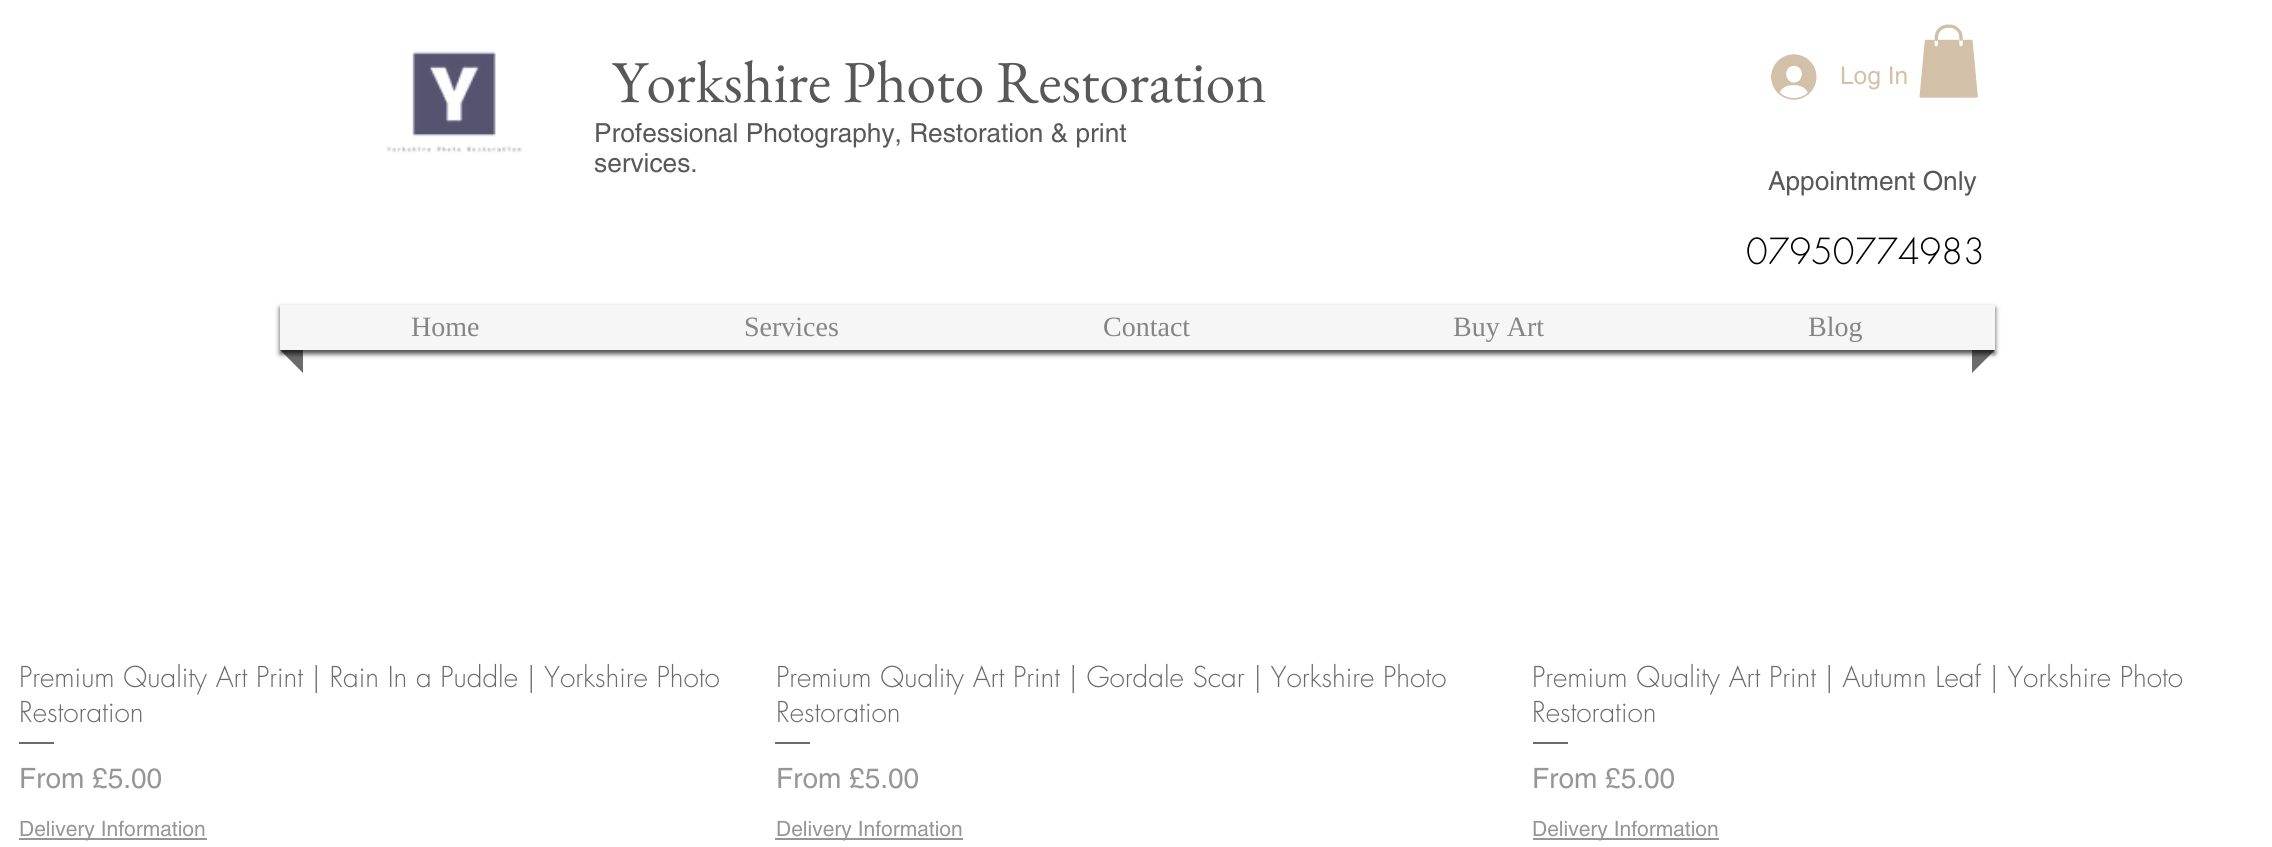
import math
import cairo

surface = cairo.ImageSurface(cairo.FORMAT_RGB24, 2272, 847)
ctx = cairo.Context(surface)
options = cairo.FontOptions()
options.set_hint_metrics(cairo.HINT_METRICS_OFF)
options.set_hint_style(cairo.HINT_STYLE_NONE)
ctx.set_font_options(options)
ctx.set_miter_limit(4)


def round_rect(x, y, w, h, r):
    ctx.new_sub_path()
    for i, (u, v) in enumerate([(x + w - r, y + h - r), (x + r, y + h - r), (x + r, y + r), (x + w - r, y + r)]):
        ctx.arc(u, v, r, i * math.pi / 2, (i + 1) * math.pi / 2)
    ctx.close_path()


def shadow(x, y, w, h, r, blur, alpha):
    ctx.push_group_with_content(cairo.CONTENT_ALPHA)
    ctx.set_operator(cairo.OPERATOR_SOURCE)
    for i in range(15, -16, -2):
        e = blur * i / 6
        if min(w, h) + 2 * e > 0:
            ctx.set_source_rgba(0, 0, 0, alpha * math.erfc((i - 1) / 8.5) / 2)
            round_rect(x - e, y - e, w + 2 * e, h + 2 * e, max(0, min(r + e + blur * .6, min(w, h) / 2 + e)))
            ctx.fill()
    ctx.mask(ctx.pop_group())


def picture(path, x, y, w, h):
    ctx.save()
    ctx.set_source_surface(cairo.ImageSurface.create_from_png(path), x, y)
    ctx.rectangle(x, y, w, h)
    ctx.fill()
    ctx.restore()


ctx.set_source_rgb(1, 1, 1)
ctx.paint()
picture("img1.png", 386, 51, 136, 102)
ctx.select_font_face("EB Garamond")
ctx.set_font_size(59.5)
ctx.set_source_rgb(0.345, 0.345, 0.345)
ctx.move_to(612, 102)
ctx.show_text("Yorkshire Photo Restoration")
ctx.select_font_face("helvetica")
ctx.set_font_size(26.25)
ctx.move_to(594, 142)
ctx.show_text("Professional Photography, Restoration & print")
ctx.move_to(594, 172)
ctx.show_text("services.")
picture("img2.png", 1771, 54, 46, 46)
ctx.set_font_size(24.5)
ctx.set_source_rgb(0.824, 0.753, 0.659)
ctx.move_to(1840, 84)
ctx.show_text("Log In")
picture("img3.png", 1919, 24, 59, 74)
ctx.set_font_size(26.25)
ctx.set_source_rgb(0.345, 0.345, 0.345)
ctx.move_to(1768, 190)
ctx.show_text("Appointment Only")
ctx.select_font_face("futura Light")
ctx.set_font_size(35)
ctx.set_source_rgb(0, 0, 0)
ctx.move_to(1746, 264)
ctx.show_text("07950774983")
ctx.set_source_rgb(0.42, 0.42, 0.42)
ctx.new_path()
ctx.move_to(280, 350)
ctx.line_to(303, 350)
ctx.line_to(303, 373)
ctx.close_path()
ctx.fill()
ctx.new_path()
ctx.move_to(1972, 350)
ctx.line_to(1995, 350)
ctx.line_to(1972, 373)
ctx.close_path()
ctx.fill()
ctx.set_source_rgb(0, 0, 0)
shadow(280, 308, 1715, 46, 0, 2.5, 0.7)
ctx.set_source_rgb(0.961, 0.961, 0.961)
ctx.rectangle(280, 305, 1715, 45)
ctx.fill()
ctx.select_font_face("Liberation Serif")
ctx.set_font_size(28)
ctx.set_source_rgb(0.522, 0.522, 0.522)
ctx.move_to(411, 336)
ctx.show_text("Home")
ctx.move_to(744, 336)
ctx.show_text("Services")
ctx.move_to(1103, 336)
ctx.show_text("Contact")
ctx.move_to(1453, 336)
ctx.show_text("Buy Art")
ctx.move_to(1808, 336)
ctx.show_text("Blog")
ctx.select_font_face("futura Light")
ctx.set_source_rgb(0.42, 0.42, 0.42)
ctx.move_to(19, 687)
ctx.show_text("Premium Quality Art Print | Rain In a Puddle | Yorkshire Photo")
ctx.move_to(19, 722)
ctx.show_text("Restoration")
ctx.rectangle(19, 742, 35, 2)
ctx.fill()
ctx.select_font_face("helvetica")
ctx.set_source_rgb(0.588, 0.588, 0.588)
ctx.move_to(19, 788)
ctx.show_text("From £5.00")
ctx.rectangle(19, 838, 188, 2)
ctx.fill()
ctx.set_font_size(21)
ctx.move_to(19, 836)
ctx.show_text("Delivery Information")
ctx.select_font_face("futura Light")
ctx.set_font_size(28)
ctx.set_source_rgb(0.42, 0.42, 0.42)
ctx.move_to(776, 687)
ctx.show_text("Premium Quality Art Print | Gordale Scar | Yorkshire Photo")
ctx.move_to(776, 722)
ctx.show_text("Restoration")
ctx.rectangle(775, 742, 35, 2)
ctx.fill()
ctx.select_font_face("helvetica")
ctx.set_source_rgb(0.588, 0.588, 0.588)
ctx.move_to(776, 788)
ctx.show_text("From £5.00")
ctx.rectangle(775, 838, 188, 2)
ctx.fill()
ctx.set_font_size(21)
ctx.move_to(776, 836)
ctx.show_text("Delivery Information")
ctx.select_font_face("futura Light")
ctx.set_font_size(28)
ctx.set_source_rgb(0.42, 0.42, 0.42)
ctx.move_to(1532, 687)
ctx.show_text("Premium Quality Art Print | Autumn Leaf | Yorkshire Photo")
ctx.move_to(1532, 722)
ctx.show_text("Restoration")
ctx.rectangle(1533, 742, 35, 2)
ctx.fill()
ctx.select_font_face("helvetica")
ctx.set_source_rgb(0.588, 0.588, 0.588)
ctx.move_to(1532, 788)
ctx.show_text("From £5.00")
ctx.rectangle(1533, 838, 186, 2)
ctx.fill()
ctx.set_font_size(21)
ctx.move_to(1532, 836)
ctx.show_text("Delivery Information")
surface.write_to_png("page.png")
